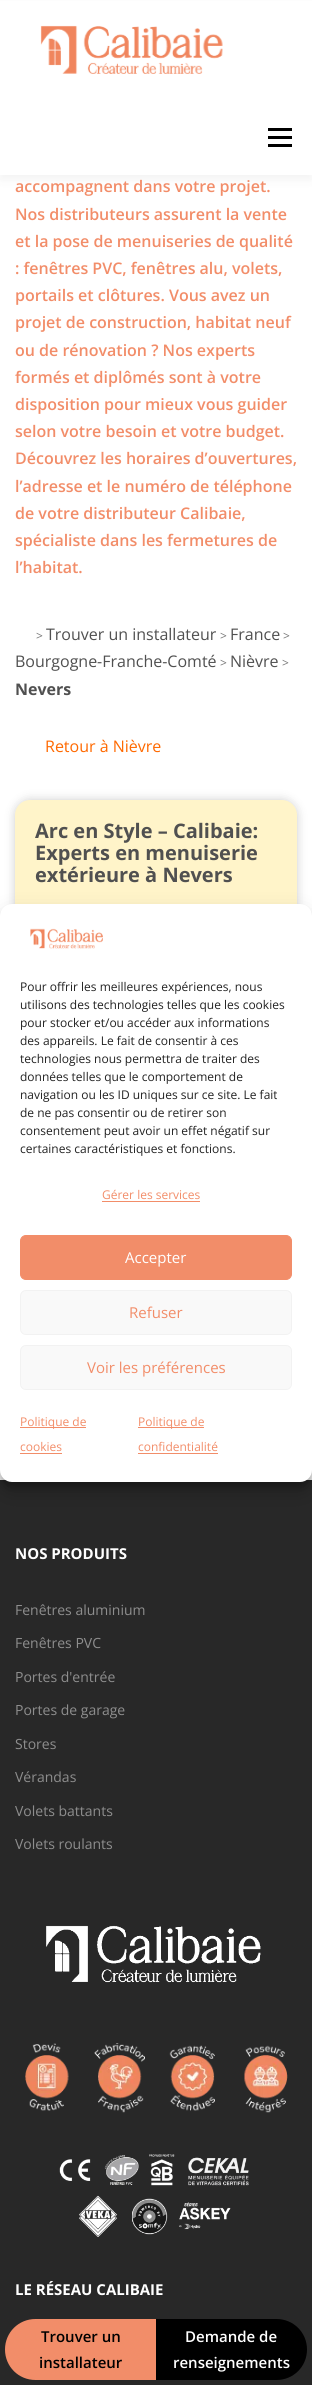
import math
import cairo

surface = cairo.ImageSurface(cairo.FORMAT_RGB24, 312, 2385)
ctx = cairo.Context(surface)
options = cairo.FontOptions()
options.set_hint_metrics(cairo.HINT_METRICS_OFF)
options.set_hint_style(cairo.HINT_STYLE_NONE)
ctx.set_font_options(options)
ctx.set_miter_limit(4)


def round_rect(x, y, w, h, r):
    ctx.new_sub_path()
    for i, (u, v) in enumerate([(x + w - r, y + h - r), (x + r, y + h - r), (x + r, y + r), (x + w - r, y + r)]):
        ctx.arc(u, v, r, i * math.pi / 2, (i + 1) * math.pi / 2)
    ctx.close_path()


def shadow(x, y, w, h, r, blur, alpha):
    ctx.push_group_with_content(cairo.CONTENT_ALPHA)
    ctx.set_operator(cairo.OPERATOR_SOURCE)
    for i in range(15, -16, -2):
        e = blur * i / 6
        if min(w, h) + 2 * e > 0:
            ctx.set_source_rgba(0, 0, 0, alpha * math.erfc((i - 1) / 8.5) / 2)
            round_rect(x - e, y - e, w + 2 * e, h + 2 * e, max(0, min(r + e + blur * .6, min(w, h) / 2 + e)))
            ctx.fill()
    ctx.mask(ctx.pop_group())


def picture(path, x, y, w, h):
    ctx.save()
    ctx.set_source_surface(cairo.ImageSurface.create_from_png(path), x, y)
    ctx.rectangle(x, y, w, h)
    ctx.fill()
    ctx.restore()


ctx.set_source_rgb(1, 1, 1)
ctx.paint()
ctx.set_source_rgb(0.196, 0.196, 0.196)
shadow(0, 5, 312, 175, 0, 5, 0.06)
ctx.set_source_rgb(1, 1, 1)
ctx.rectangle(0, 1, 312, 174)
ctx.fill()
picture("img1.png", 40, 25, 183, 49)
ctx.set_source_rgb(0, 0, 0)
ctx.rectangle(268, 136, 24, 3)
ctx.fill()
ctx.rectangle(268, 128, 24, 3)
ctx.fill()
ctx.rectangle(268, 144, 24, 3)
ctx.fill()
ctx.select_font_face("Open Sans SemiBold")
ctx.set_font_size(16)
ctx.set_source_rgb(0.949, 0.553, 0.412)
ctx.move_to(15, 192)
ctx.show_text("accompagnent dans votre projet.")
ctx.move_to(15, 220)
ctx.show_text("Nos distributeurs assurent la vente")
ctx.move_to(15, 247)
ctx.show_text("et la pose de menuiseries de qualité")
ctx.move_to(15, 274)
ctx.show_text(": fenêtres PVC, fenêtres alu, volets,")
ctx.move_to(15, 301)
ctx.show_text("portails et clôtures. Vous avez un")
ctx.move_to(15, 328)
ctx.show_text("projet de construction, habitat neuf")
ctx.move_to(15, 356)
ctx.show_text("ou de rénovation ? Nos experts")
ctx.move_to(15, 383)
ctx.show_text("formés et diplômés sont à votre")
ctx.move_to(15, 410)
ctx.show_text("disposition pour mieux vous guider")
ctx.move_to(15, 437)
ctx.show_text("selon votre besoin et votre budget.")
ctx.move_to(15, 464)
ctx.show_text("Découvrez les horaires d’ouvertures,")
ctx.move_to(15, 492)
ctx.show_text("l’adresse et le numéro de téléphone")
ctx.move_to(15, 519)
ctx.show_text("de votre distributeur Calibaie,")
ctx.move_to(15, 546)
ctx.show_text("spécialiste dans les fermetures de")
ctx.move_to(15, 573)
ctx.show_text("l’habitat.")
ctx.select_font_face("Open Sans")
ctx.set_font_size(12)
ctx.set_source_rgb(0.467, 0.467, 0.467)
ctx.move_to(36, 640)
ctx.show_text(">")
ctx.set_font_size(16)
ctx.set_source_rgb(0.314, 0.314, 0.314)
ctx.move_to(46, 640)
ctx.show_text("Trouver un installateur")
ctx.set_font_size(12)
ctx.set_source_rgb(0.467, 0.467, 0.467)
ctx.move_to(220, 640)
ctx.show_text(">")
ctx.set_font_size(16)
ctx.set_source_rgb(0.314, 0.314, 0.314)
ctx.move_to(230, 640)
ctx.show_text("France")
ctx.set_font_size(12)
ctx.set_source_rgb(0.467, 0.467, 0.467)
ctx.move_to(283, 640)
ctx.show_text(">")
ctx.set_font_size(16)
ctx.set_source_rgb(0.314, 0.314, 0.314)
ctx.move_to(15, 667)
ctx.show_text("Bourgogne-Franche-Comté")
ctx.set_font_size(12)
ctx.set_source_rgb(0.467, 0.467, 0.467)
ctx.move_to(220, 667)
ctx.show_text(">")
ctx.set_font_size(16)
ctx.set_source_rgb(0.314, 0.314, 0.314)
ctx.move_to(230, 667)
ctx.show_text("Nièvre")
ctx.set_font_size(12)
ctx.set_source_rgb(0.467, 0.467, 0.467)
ctx.move_to(282, 667)
ctx.show_text(">")
ctx.select_font_face("Open Sans", cairo.FONT_SLANT_NORMAL, cairo.FONT_WEIGHT_BOLD)
ctx.set_font_size(16)
ctx.set_source_rgb(0.314, 0.314, 0.314)
ctx.move_to(15, 695)
ctx.show_text("Nevers")
ctx.select_font_face("Open Sans")
ctx.set_source_rgb(1, 0.412, 0)
ctx.move_to(45, 752)
ctx.show_text("Retour à Nièvre")
ctx.set_source_rgb(0, 0, 0)
shadow(15, 800, 282, 290, 15, 5, 0.2)
ctx.set_source_rgb(1, 0.957, 0.788)
round_rect(15, 800, 282, 290, 15)
ctx.fill()
ctx.select_font_face("Open Sans", cairo.FONT_SLANT_NORMAL, cairo.FONT_WEIGHT_BOLD)
ctx.set_font_size(20)
ctx.set_source_rgb(0.314, 0.314, 0.314)
ctx.move_to(35, 838)
ctx.show_text("Arc en Style – Calibaie:")
ctx.move_to(35, 860)
ctx.show_text("Experts en menuiserie")
ctx.move_to(35, 882)
ctx.show_text("extérieure à Nevers")
ctx.set_source_rgb(0.157, 0.157, 0.157)
ctx.rectangle(0, 1480, 312, 905)
ctx.fill()
ctx.set_font_size(15)
ctx.set_source_rgb(1, 1, 1)
ctx.move_to(15, 1559)
ctx.show_text("NOS PRODUITS")
ctx.select_font_face("Open Sans")
ctx.set_font_size(14)
ctx.set_source_rgb(0.557, 0.557, 0.557)
ctx.move_to(15, 1615)
ctx.show_text("Fenêtres aluminium")
ctx.move_to(15, 1648)
ctx.show_text("Fenêtres PVC")
ctx.move_to(15, 1682)
ctx.show_text("Portes d'entrée")
ctx.move_to(15, 1715)
ctx.show_text("Portes de garage")
ctx.move_to(15, 1749)
ctx.show_text("Stores")
ctx.move_to(15, 1782)
ctx.show_text("Vérandas")
ctx.move_to(15, 1816)
ctx.show_text("Volets battants")
ctx.move_to(15, 1849)
ctx.show_text("Volets roulants")
picture("img2.png", 46, 1925, 215, 58)
picture("img3.png", 25, 2043, 263, 70)
picture("img4.png", 59, 2154, 190, 83)
ctx.select_font_face("Open Sans", cairo.FONT_SLANT_NORMAL, cairo.FONT_WEIGHT_BOLD)
ctx.set_font_size(15)
ctx.set_source_rgb(1, 1, 1)
ctx.move_to(15, 2295)
ctx.show_text("LE RÉSEAU CALIBAIE")
ctx.set_source_rgb(0, 0, 0)
shadow(0, 910, 312, 578, 12, 3, 0.23)
shadow(0, 914, 312, 578, 12, 10, 0.19)
ctx.set_source_rgb(1, 1, 1)
round_rect(0, 904, 312, 578, 12)
ctx.fill()
picture("img5.png", 30, 928, 73, 21)
ctx.select_font_face("Open Sans")
ctx.set_font_size(12)
ctx.set_source_rgb(0.133, 0.133, 0.133)
ctx.move_to(20, 991)
ctx.show_text("Pour offrir les meilleures expériences, nous")
ctx.move_to(20, 1009)
ctx.show_text("utilisons des technologies telles que les cookies")
ctx.move_to(20, 1027)
ctx.show_text("pour stocker et/ou accéder aux informations")
ctx.move_to(20, 1045)
ctx.show_text("des appareils. Le fait de consentir à ces")
ctx.move_to(20, 1063)
ctx.show_text("technologies nous permettra de traiter des")
ctx.move_to(20, 1081)
ctx.show_text("données telles que le comportement de")
ctx.move_to(20, 1099)
ctx.show_text("navigation ou les ID uniques sur ce site. Le fait")
ctx.move_to(20, 1117)
ctx.show_text("de ne pas consentir ou de retirer son")
ctx.move_to(20, 1135)
ctx.show_text("consentement peut avoir un effet négatif sur")
ctx.move_to(20, 1153)
ctx.show_text("certaines caractéristiques et fonctions.")
ctx.set_source_rgb(0.949, 0.553, 0.412)
ctx.move_to(102, 1199)
ctx.show_text("Gérer les services")
ctx.rectangle(102, 1201, 98, 1)
ctx.fill()
round_rect(20.5, 1235.5, 271, 44, 5.5)
ctx.fill_preserve()
ctx.set_line_width(1)
ctx.stroke()
ctx.set_font_size(15)
ctx.set_source_rgb(1, 1, 1)
ctx.move_to(125, 1263)
ctx.show_text("Accepter")
ctx.set_source_rgb(0.976, 0.976, 0.976)
round_rect(20.5, 1290.5, 271, 44, 5.5)
ctx.fill_preserve()
ctx.set_source_rgb(0.949, 0.949, 0.949)
ctx.stroke()
ctx.set_source_rgb(0.949, 0.553, 0.412)
ctx.move_to(129, 1318)
ctx.show_text("Refuser")
ctx.set_source_rgb(0.976, 0.976, 0.976)
round_rect(20.5, 1345.5, 271, 44, 5.5)
ctx.fill_preserve()
ctx.set_source_rgb(0.949, 0.949, 0.949)
ctx.stroke()
ctx.set_source_rgb(0.949, 0.553, 0.412)
ctx.move_to(87, 1373)
ctx.show_text("Voir les préférences")
ctx.rectangle(20, 1427, 66, 1)
ctx.fill()
ctx.set_font_size(12)
ctx.move_to(20, 1426)
ctx.show_text("Politique de")
ctx.move_to(20, 1451)
ctx.show_text("cookies")
ctx.rectangle(20, 1453, 42, 1)
ctx.fill()
ctx.rectangle(138, 1427, 66, 1)
ctx.fill()
ctx.move_to(138, 1426)
ctx.show_text("Politique de")
ctx.move_to(138, 1451)
ctx.show_text("confidentialité")
ctx.rectangle(138, 1453, 80, 1)
ctx.fill()
ctx.new_path()
ctx.move_to(35.5, 2319)
ctx.line_to(156, 2319)
ctx.line_to(156, 2380)
ctx.line_to(35.5, 2380)
ctx.curve_to(18.5, 2380, 5, 2366.5, 5, 2349.5)
ctx.curve_to(5, 2332.5, 18.5, 2319, 35.5, 2319)
ctx.close_path()
ctx.fill()
ctx.select_font_face("Open Sans SemiBold")
ctx.set_font_size(15)
ctx.set_source_rgb(0, 0, 0)
ctx.move_to(41, 2342)
ctx.show_text("Trouver un")
ctx.move_to(39, 2368)
ctx.show_text("installateur")
ctx.new_path()
ctx.move_to(156, 2319)
ctx.line_to(276.5, 2319)
ctx.curve_to(293.5, 2319, 307, 2332.5, 307, 2349.5)
ctx.curve_to(307, 2366.5, 293.5, 2380, 276.5, 2380)
ctx.line_to(156, 2380)
ctx.close_path()
ctx.fill()
ctx.set_source_rgb(1, 1, 1)
ctx.move_to(185, 2342)
ctx.show_text("Demande de")
ctx.move_to(173, 2368)
ctx.show_text("renseignements")
surface.write_to_png("page.png")
